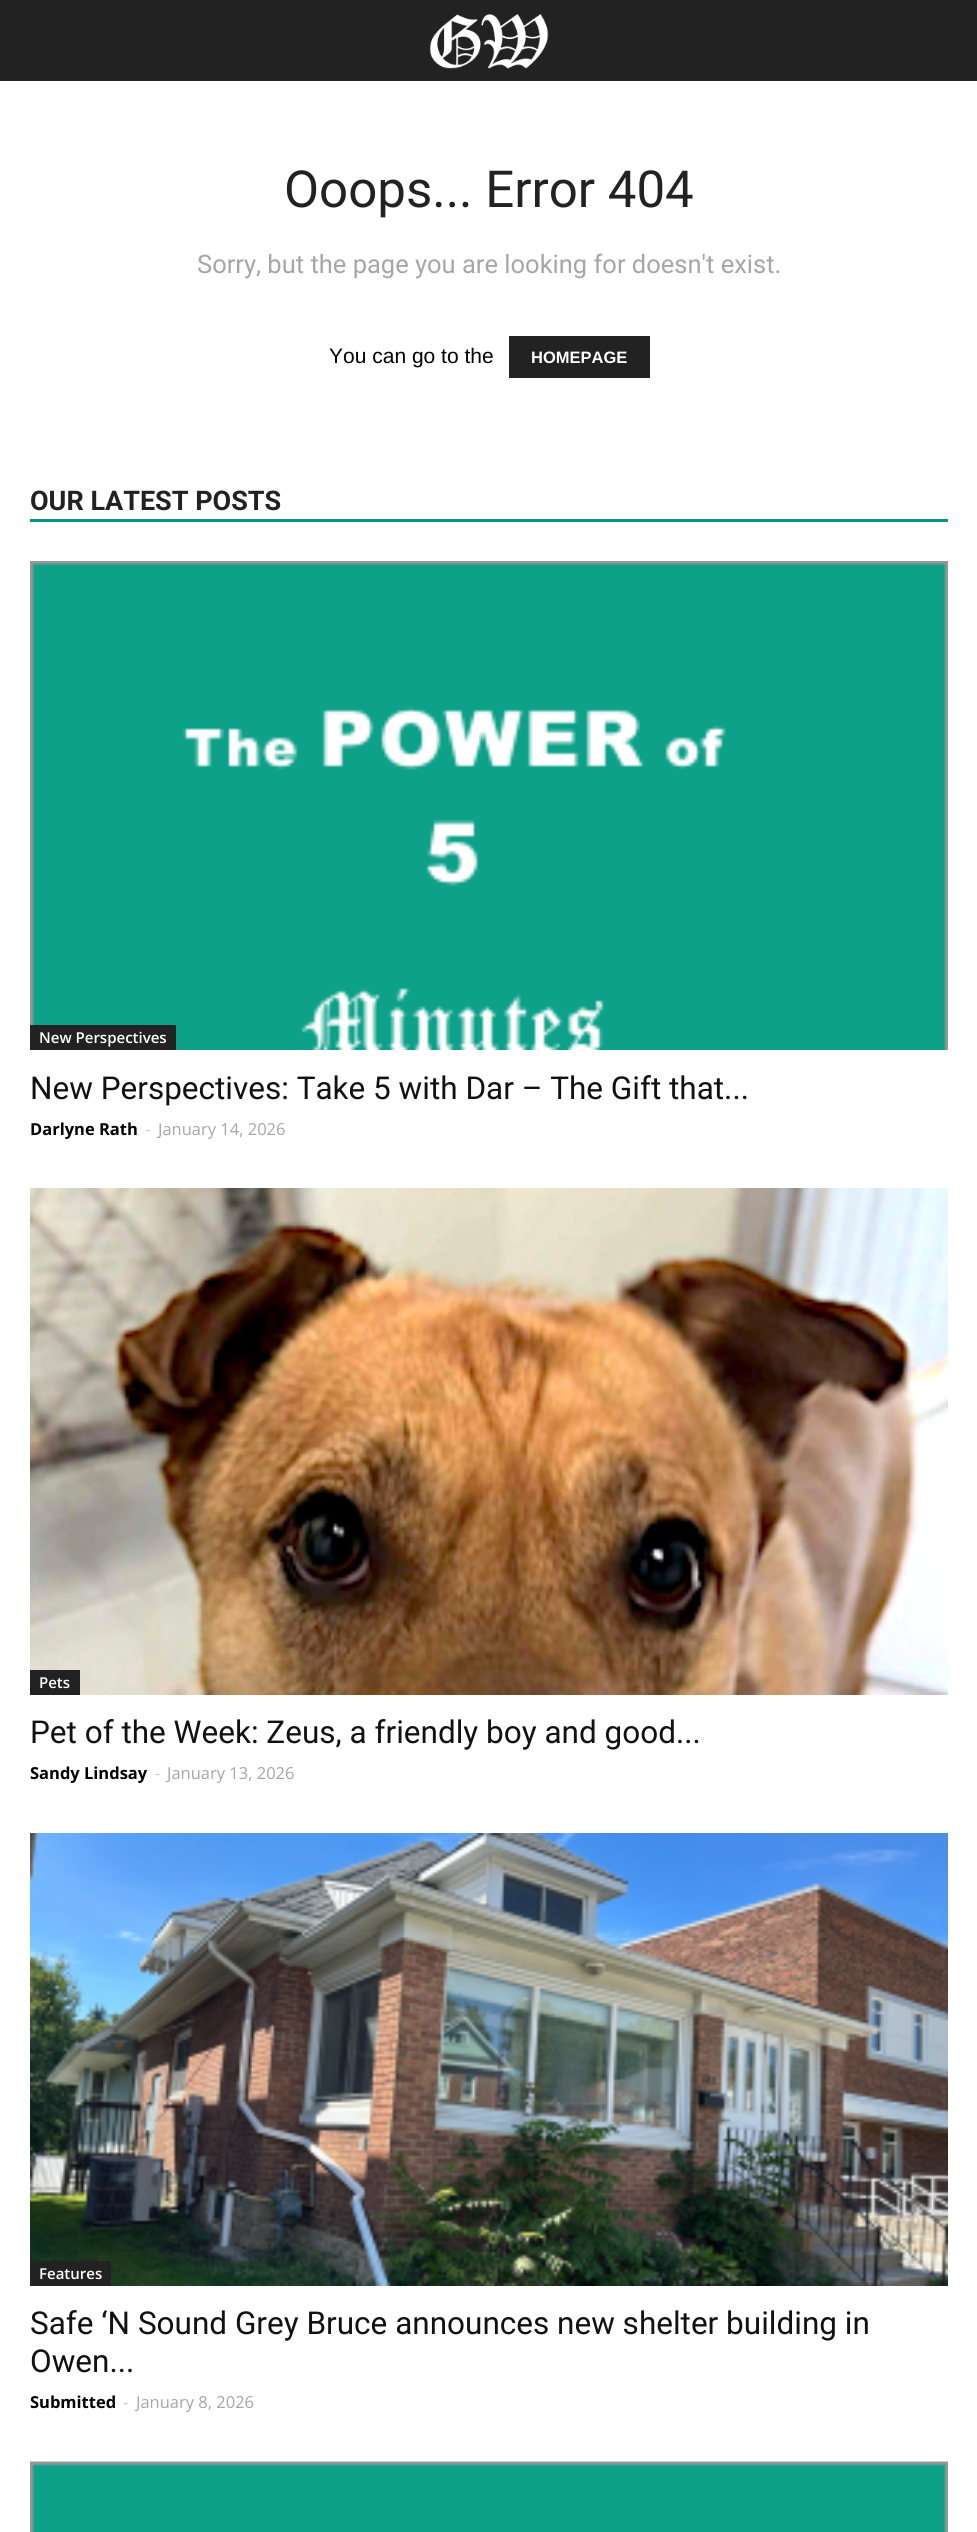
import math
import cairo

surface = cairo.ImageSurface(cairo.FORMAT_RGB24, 977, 2532)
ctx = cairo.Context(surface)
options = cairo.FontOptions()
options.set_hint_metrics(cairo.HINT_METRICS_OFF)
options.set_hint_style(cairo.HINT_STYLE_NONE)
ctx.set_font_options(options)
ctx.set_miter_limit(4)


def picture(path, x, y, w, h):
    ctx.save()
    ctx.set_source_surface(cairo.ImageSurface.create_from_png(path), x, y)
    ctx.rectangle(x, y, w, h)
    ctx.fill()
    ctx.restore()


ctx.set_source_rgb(1, 1, 1)
ctx.paint()
ctx.set_source_rgb(0.133, 0.133, 0.133)
ctx.rectangle(0, 0, 977, 81)
ctx.fill()
picture("img1.png", 429, 13, 120, 56)
ctx.select_font_face("Roboto")
ctx.set_font_size(51)
ctx.move_to(284, 207)
ctx.show_text("Ooops... Error 404")
ctx.set_font_size(25.5)
ctx.set_source_rgb(0.651, 0.651, 0.651)
ctx.move_to(197, 273)
ctx.show_text("Sorry, but the page you are looking for doesn't exist.")
ctx.select_font_face("Liberation Sans")
ctx.set_font_size(21)
ctx.set_source_rgb(0, 0, 0)
ctx.move_to(329, 363)
ctx.show_text("You can go to the")
ctx.set_source_rgb(0.133, 0.133, 0.133)
ctx.rectangle(509, 336, 141, 42)
ctx.fill()
ctx.select_font_face("Liberation Sans", cairo.FONT_SLANT_NORMAL, cairo.FONT_WEIGHT_BOLD)
ctx.set_font_size(16.5)
ctx.set_source_rgb(1, 1, 1)
ctx.move_to(531, 363)
ctx.show_text("HOMEPAGE")
ctx.set_source_rgb(0, 0.588, 0.533)
ctx.rectangle(30, 519, 918, 3)
ctx.fill()
ctx.select_font_face("Roboto", cairo.FONT_SLANT_NORMAL, cairo.FONT_WEIGHT_BOLD)
ctx.set_font_size(27)
ctx.set_source_rgb(0.133, 0.133, 0.133)
ctx.move_to(30, 510)
ctx.show_text("OUR LATEST POSTS")
picture("img2.png", 30, 561, 918, 489)
ctx.rectangle(30, 1025, 146, 25)
ctx.fill()
ctx.select_font_face("Open Sans SemiBold")
ctx.set_font_size(15)
ctx.set_source_rgb(1, 1, 1)
ctx.move_to(39, 1043)
ctx.show_text("New Perspectives")
ctx.select_font_face("Roboto")
ctx.set_font_size(31.5)
ctx.set_source_rgb(0.067, 0.067, 0.067)
ctx.move_to(30, 1099)
ctx.show_text("New Perspectives: Take 5 with Dar – The Gift that...")
ctx.select_font_face("Open Sans", cairo.FONT_SLANT_NORMAL, cairo.FONT_WEIGHT_BOLD)
ctx.set_font_size(16.5)
ctx.set_source_rgb(0, 0, 0)
ctx.move_to(30, 1135)
ctx.show_text("Darlyne Rath")
ctx.select_font_face("Open Sans")
ctx.set_source_rgb(0.8, 0.8, 0.8)
ctx.move_to(145, 1135)
ctx.show_text("-")
ctx.set_source_rgb(0.651, 0.651, 0.651)
ctx.move_to(158, 1135)
ctx.show_text("January 14, 2026")
picture("img3.png", 30, 1188, 918, 507)
ctx.set_source_rgb(0.133, 0.133, 0.133)
ctx.rectangle(30, 1670, 50, 25)
ctx.fill()
ctx.select_font_face("Open Sans SemiBold")
ctx.set_font_size(15)
ctx.set_source_rgb(1, 1, 1)
ctx.move_to(39, 1688)
ctx.show_text("Pets")
ctx.select_font_face("Roboto")
ctx.set_font_size(31.5)
ctx.set_source_rgb(0.067, 0.067, 0.067)
ctx.move_to(30, 1743)
ctx.show_text("Pet of the Week: Zeus, a friendly boy and good...")
ctx.select_font_face("Open Sans", cairo.FONT_SLANT_NORMAL, cairo.FONT_WEIGHT_BOLD)
ctx.set_font_size(16.5)
ctx.set_source_rgb(0, 0, 0)
ctx.move_to(30, 1779)
ctx.show_text("Sandy Lindsay")
ctx.select_font_face("Open Sans")
ctx.set_source_rgb(0.8, 0.8, 0.8)
ctx.move_to(155, 1779)
ctx.show_text("-")
ctx.set_source_rgb(0.651, 0.651, 0.651)
ctx.move_to(167, 1779)
ctx.show_text("January 13, 2026")
picture("img4.png", 30, 1833, 918, 453)
ctx.set_source_rgb(0.133, 0.133, 0.133)
ctx.rectangle(30, 2261, 81, 25)
ctx.fill()
ctx.select_font_face("Open Sans SemiBold")
ctx.set_font_size(15)
ctx.set_source_rgb(1, 1, 1)
ctx.move_to(39, 2279)
ctx.show_text("Features")
ctx.select_font_face("Roboto")
ctx.set_font_size(31.5)
ctx.set_source_rgb(0.067, 0.067, 0.067)
ctx.move_to(30, 2334)
ctx.show_text("Safe ‘N Sound Grey Bruce announces new shelter building in")
ctx.move_to(30, 2372)
ctx.show_text("Owen...")
ctx.select_font_face("Open Sans", cairo.FONT_SLANT_NORMAL, cairo.FONT_WEIGHT_BOLD)
ctx.set_font_size(16.5)
ctx.set_source_rgb(0, 0, 0)
ctx.move_to(30, 2408)
ctx.show_text("Submitted")
ctx.select_font_face("Open Sans")
ctx.set_source_rgb(0.8, 0.8, 0.8)
ctx.move_to(123, 2408)
ctx.show_text("-")
ctx.set_source_rgb(0.651, 0.651, 0.651)
ctx.move_to(136, 2408)
ctx.show_text("January 8, 2026")
picture("img5.png", 30, 2461, 918, 71)
surface.write_to_png("page.png")
